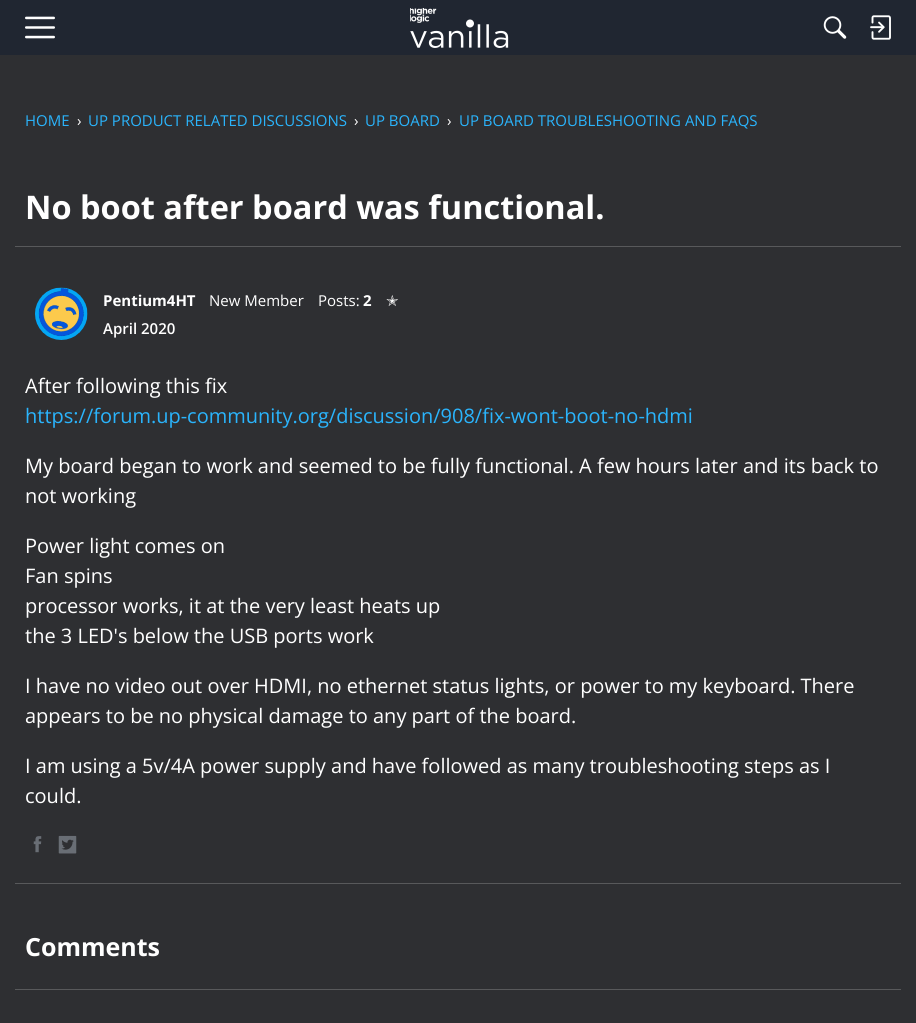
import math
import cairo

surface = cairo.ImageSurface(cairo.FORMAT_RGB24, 916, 1023)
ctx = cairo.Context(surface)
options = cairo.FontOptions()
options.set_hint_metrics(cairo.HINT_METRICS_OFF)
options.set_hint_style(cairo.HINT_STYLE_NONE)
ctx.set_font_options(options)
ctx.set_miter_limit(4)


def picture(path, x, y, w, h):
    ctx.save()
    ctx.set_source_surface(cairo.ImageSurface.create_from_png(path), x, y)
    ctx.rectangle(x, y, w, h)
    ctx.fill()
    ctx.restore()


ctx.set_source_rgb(0.18, 0.184, 0.196)
ctx.paint()
ctx.set_source_rgb(0.125, 0.149, 0.192)
ctx.rectangle(0, 0, 916, 55)
ctx.fill()
picture("img1.png", 25, 16, 30, 23)
picture("img2.png", 410, 8, 99, 40)
picture("img3.png", 823, 16, 24, 23)
picture("img4.png", 870, 15, 21, 25)
ctx.select_font_face("Open Sans")
ctx.set_font_size(15)
ctx.set_source_rgb(0.165, 0.706, 0.988)
ctx.move_to(25, 126)
ctx.show_text("HOME")
ctx.set_source_rgb(1, 1, 1)
ctx.move_to(77, 126)
ctx.show_text("›")
ctx.set_source_rgb(0.165, 0.706, 0.988)
ctx.move_to(88, 126)
ctx.show_text("UP PRODUCT RELATED DISCUSSIONS")
ctx.set_source_rgb(1, 1, 1)
ctx.move_to(354, 126)
ctx.show_text("›")
ctx.set_source_rgb(0.165, 0.706, 0.988)
ctx.move_to(365, 126)
ctx.show_text("UP BOARD")
ctx.set_source_rgb(1, 1, 1)
ctx.move_to(447, 126)
ctx.show_text("›")
ctx.set_source_rgb(0.165, 0.706, 0.988)
ctx.move_to(459, 126)
ctx.show_text("UP BOARD TROUBLESHOOTING AND FAQS")
ctx.select_font_face("Open Sans", cairo.FONT_SLANT_NORMAL, cairo.FONT_WEIGHT_BOLD)
ctx.set_font_size(32.5)
ctx.set_source_rgb(1, 1, 1)
ctx.move_to(25, 219)
ctx.show_text("No boot after board was functional.")
ctx.set_source_rgb(0.345, 0.349, 0.357)
ctx.rectangle(15, 246, 886, 1)
ctx.fill()
picture("img5.png", 35, 287, 53, 53)
ctx.set_font_size(15)
ctx.set_source_rgb(1, 1, 1)
ctx.move_to(103, 306)
ctx.show_text("Pentium4HT")
ctx.select_font_face("Open Sans")
ctx.move_to(209, 306)
ctx.show_text("New Member")
ctx.move_to(318, 306)
ctx.show_text("Posts:")
ctx.select_font_face("Open Sans", cairo.FONT_SLANT_NORMAL, cairo.FONT_WEIGHT_BOLD)
ctx.move_to(363, 306)
ctx.show_text("2")
ctx.select_font_face("DejaVu Sans")
ctx.move_to(386, 306)
ctx.show_text("✭")
ctx.select_font_face("Open Sans SemiBold")
ctx.move_to(103, 334)
ctx.show_text("April 2020")
ctx.select_font_face("Open Sans")
ctx.set_font_size(20)
ctx.move_to(25, 393)
ctx.show_text("After following this fix")
ctx.set_source_rgb(0.165, 0.706, 0.988)
ctx.move_to(25, 423)
ctx.show_text("https://forum.up-community.org/discussion/908/fix-wont-boot-no-hdmi")
ctx.set_source_rgb(1, 1, 1)
ctx.move_to(25, 473)
ctx.show_text("My board began to work and seemed to be fully functional. A few hours later and its back to")
ctx.move_to(25, 503)
ctx.show_text("not working")
ctx.move_to(25, 553)
ctx.show_text("Power light comes on")
ctx.move_to(25, 583)
ctx.show_text("Fan spins")
ctx.move_to(25, 613)
ctx.show_text("processor works, it at the very least heats up")
ctx.move_to(25, 643)
ctx.show_text("the 3 LED's below the USB ports work")
ctx.move_to(25, 693)
ctx.show_text("I have no video out over HDMI, no ethernet status lights, or power to my keyboard. There")
ctx.move_to(25, 723)
ctx.show_text("appears to be no physical damage to any part of the board.")
ctx.move_to(25, 773)
ctx.show_text("I am using a 5v/4A power supply and have followed as many troubleshooting steps as I")
ctx.move_to(25, 803)
ctx.show_text("could.")
picture("img6.png", 33, 836, 9, 17)
picture("img7.png", 58, 835, 19, 19)
ctx.set_source_rgb(0.345, 0.349, 0.357)
ctx.rectangle(15, 883, 886, 1)
ctx.fill()
ctx.select_font_face("Open Sans", cairo.FONT_SLANT_NORMAL, cairo.FONT_WEIGHT_BOLD)
ctx.set_font_size(25)
ctx.set_source_rgb(1, 1, 1)
ctx.move_to(25, 956)
ctx.show_text("Comments")
ctx.set_source_rgb(0.345, 0.349, 0.357)
ctx.rectangle(15, 989, 886, 1)
ctx.fill()
surface.write_to_png("page.png")
